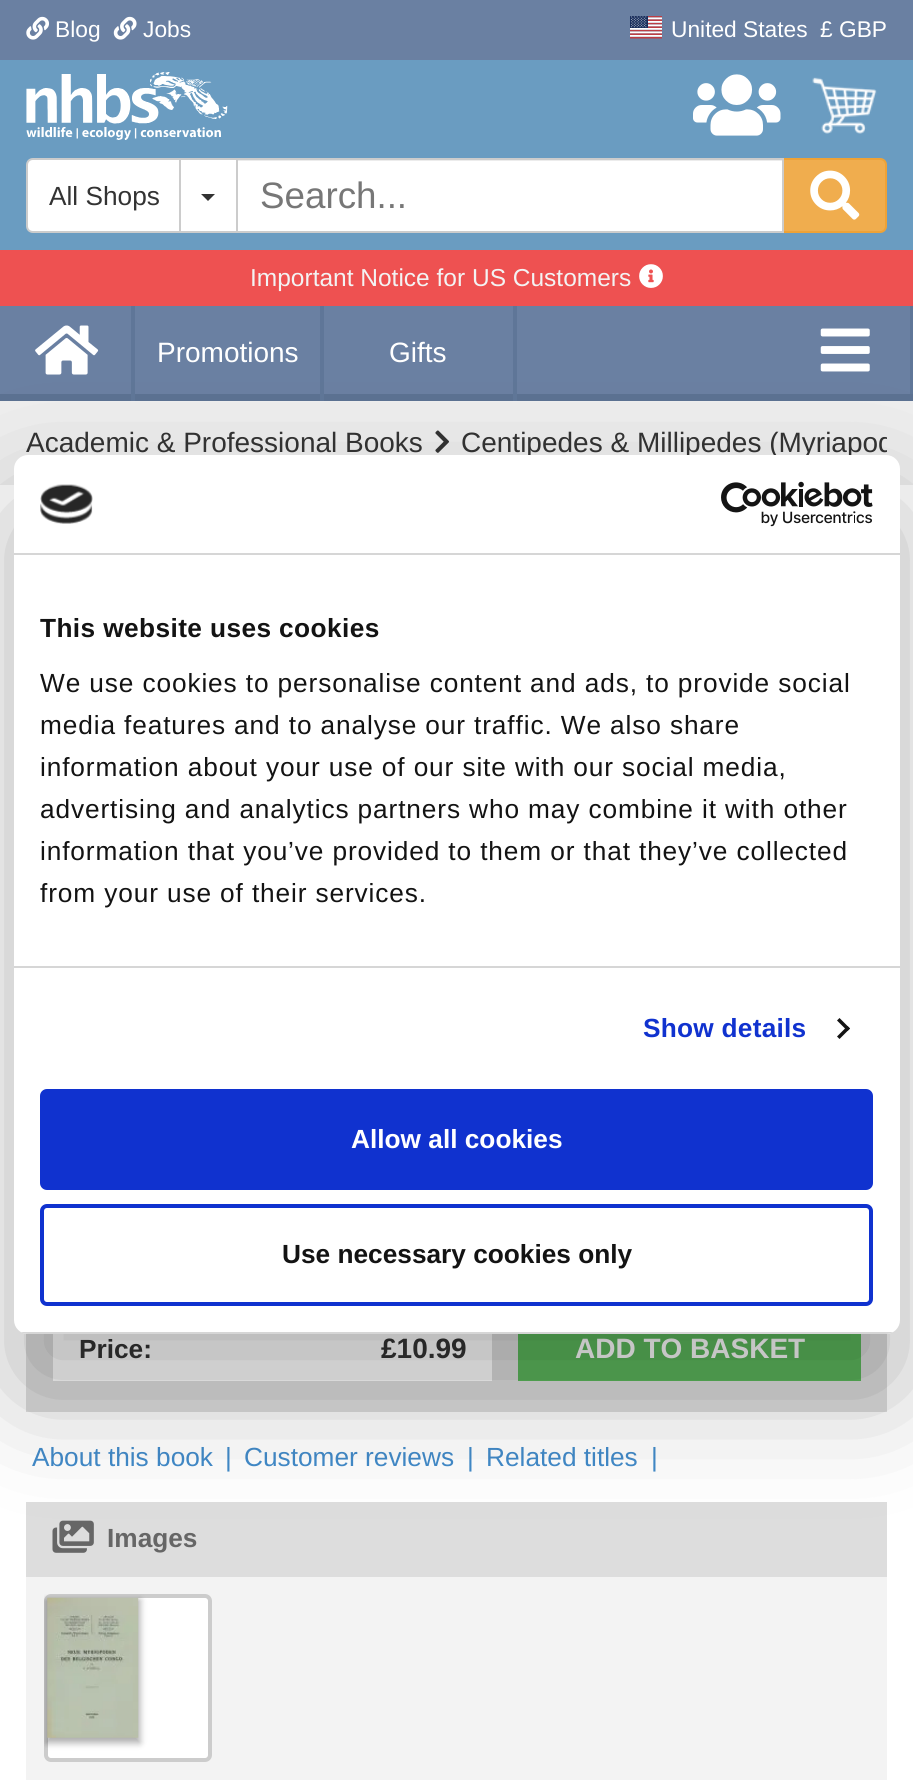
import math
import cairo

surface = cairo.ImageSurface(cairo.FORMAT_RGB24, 913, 1788)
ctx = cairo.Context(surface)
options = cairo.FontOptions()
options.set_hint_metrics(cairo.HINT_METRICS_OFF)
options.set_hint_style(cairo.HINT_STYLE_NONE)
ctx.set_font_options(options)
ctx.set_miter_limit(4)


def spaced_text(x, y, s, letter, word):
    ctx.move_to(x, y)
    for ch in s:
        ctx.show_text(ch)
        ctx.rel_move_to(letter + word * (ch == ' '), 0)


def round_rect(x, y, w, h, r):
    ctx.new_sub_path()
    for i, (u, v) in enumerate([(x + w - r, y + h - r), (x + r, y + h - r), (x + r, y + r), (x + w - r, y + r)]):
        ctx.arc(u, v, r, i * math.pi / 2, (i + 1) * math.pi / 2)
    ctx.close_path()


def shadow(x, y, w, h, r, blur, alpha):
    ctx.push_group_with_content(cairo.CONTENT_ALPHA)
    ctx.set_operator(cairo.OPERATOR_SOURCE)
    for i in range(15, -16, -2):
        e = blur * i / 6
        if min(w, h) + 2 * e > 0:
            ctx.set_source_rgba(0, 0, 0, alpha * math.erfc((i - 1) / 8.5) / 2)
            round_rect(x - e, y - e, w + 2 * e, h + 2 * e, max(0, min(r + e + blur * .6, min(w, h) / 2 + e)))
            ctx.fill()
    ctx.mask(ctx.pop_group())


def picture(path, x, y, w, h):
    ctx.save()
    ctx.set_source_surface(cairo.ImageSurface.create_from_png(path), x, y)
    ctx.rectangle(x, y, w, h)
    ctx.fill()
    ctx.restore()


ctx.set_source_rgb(1, 1, 1)
ctx.paint()
ctx.set_source_rgb(0.416, 0.612, 0.757)
ctx.rectangle(0, 60, 913, 190)
ctx.fill()
ctx.set_source_rgb(0.416, 0.502, 0.635)
ctx.rectangle(0, 0, 913, 60)
ctx.fill()
picture("img1.png", 26, 16, 23, 24)
ctx.select_font_face("Liberation Sans")
ctx.set_font_size(22.75)
ctx.set_source_rgb(1, 1, 1)
ctx.move_to(55, 37)
ctx.show_text("Blog")
picture("img2.png", 113, 16, 24, 24)
ctx.move_to(143, 37)
ctx.show_text("Jobs")
picture("img3.png", 630, 16, 32, 23)
ctx.move_to(671, 37)
ctx.show_text("United States")
ctx.move_to(820, 37)
ctx.show_text("£ GBP")
picture("img4.png", 26, 72, 202, 68)
picture("img5.png", 693, 74, 88, 62)
picture("img6.png", 812, 77, 65, 57)
ctx.new_path()
ctx.move_to(33, 159)
ctx.line_to(181, 159)
ctx.line_to(181, 232)
ctx.line_to(33, 232)
ctx.curve_to(29.5, 232, 27, 229.5, 27, 226)
ctx.line_to(27, 165)
ctx.curve_to(27, 161.5, 29.5, 159, 33, 159)
ctx.close_path()
ctx.fill_preserve()
ctx.set_source_rgb(0.8, 0.8, 0.8)
ctx.stroke()
ctx.set_font_size(26.25)
ctx.set_source_rgb(0.2, 0.2, 0.2)
ctx.move_to(49, 205)
ctx.show_text("All Shops")
ctx.set_source_rgb(1, 1, 1)
ctx.rectangle(180, 159, 57, 73)
ctx.fill_preserve()
ctx.set_source_rgb(0.8, 0.8, 0.8)
ctx.stroke()
ctx.set_source_rgb(0.2, 0.2, 0.2)
ctx.new_path()
ctx.move_to(201, 194)
ctx.line_to(215, 194)
ctx.line_to(208, 201)
ctx.close_path()
ctx.fill()
ctx.set_source_rgb(1, 1, 1)
ctx.rectangle(238, 161, 544, 70)
ctx.fill()
ctx.set_source_rgb(0.925, 0.925, 0.925)
ctx.rectangle(238, 160, 544, 1)
ctx.fill()
ctx.set_source_rgb(0.941, 0.678, 0.306)
ctx.new_path()
ctx.move_to(783, 159)
ctx.line_to(880, 159)
ctx.curve_to(883.5, 159, 886, 161.5, 886, 165)
ctx.line_to(886, 226)
ctx.curve_to(886, 229.5, 883.5, 232, 880, 232)
ctx.line_to(783, 232)
ctx.close_path()
ctx.fill_preserve()
ctx.set_source_rgb(0.933, 0.635, 0.212)
ctx.stroke()
ctx.rectangle(237, 159, 546, 73)
ctx.set_source_rgb(0.8, 0.8, 0.8)
ctx.stroke()
ctx.set_font_size(36.75)
ctx.set_source_rgb(0.467, 0.467, 0.467)
ctx.move_to(260, 208)
ctx.show_text("Search...")
picture("img7.png", 810, 170, 50, 50)
ctx.set_source_rgb(0.933, 0.318, 0.318)
ctx.rectangle(0, 250, 913, 56)
ctx.fill()
ctx.set_font_size(24.5)
ctx.set_source_rgb(0.953, 0.953, 0.953)
ctx.move_to(250, 286)
ctx.show_text("Important Notice for US Customers")
picture("img8.png", 639, 264, 24, 24)
ctx.set_source_rgb(0.357, 0.443, 0.573)
ctx.rectangle(0, 394, 913, 7)
ctx.fill()
ctx.set_source_rgb(0.416, 0.502, 0.635)
ctx.rectangle(0, 306, 910, 88)
ctx.fill()
ctx.set_source_rgb(0.373, 0.463, 0.596)
ctx.rectangle(910, 306, 3, 88)
ctx.fill()
picture("img9.png", 35, 325, 64, 50)
ctx.rectangle(320, 306, 4, 95)
ctx.fill()
ctx.rectangle(131, 306, 4, 95)
ctx.fill()
ctx.set_font_size(28)
ctx.set_source_rgb(1, 1, 1)
ctx.move_to(157, 362)
ctx.show_text("Promotions")
ctx.set_source_rgb(0.373, 0.463, 0.596)
ctx.rectangle(513, 306, 4, 95)
ctx.fill()
ctx.set_source_rgb(1, 1, 1)
ctx.move_to(389, 362)
ctx.show_text("Gifts")
picture("img10.png", 820, 328, 50, 44)
ctx.set_source_rgb(0.933, 0.933, 0.933)
ctx.rectangle(0, 401, 913, 84)
ctx.fill()
ctx.set_source_rgb(0.2, 0.2, 0.2)
ctx.move_to(26, 452)
ctx.show_text("Academic & Professional Books")
picture("img11.png", 435, 430, 14, 23)
ctx.save()
ctx.rectangle(26, 401, 861, 84)
ctx.clip()
ctx.move_to(461, 452)
ctx.show_text("Centipedes & Millipedes (Myriapod")
ctx.restore()
ctx.set_source_rgb(0.867, 0.867, 0.867)
ctx.rectangle(26, 1333, 861, 79)
ctx.fill()
ctx.set_source_rgb(1, 1, 1)
ctx.rectangle(53, 1334, 439, 47)
ctx.fill()
ctx.select_font_face("Liberation Sans", cairo.FONT_SLANT_NORMAL, cairo.FONT_WEIGHT_BOLD)
ctx.set_font_size(26.25)
ctx.set_source_rgb(0.2, 0.2, 0.2)
ctx.move_to(79, 1358)
ctx.show_text("Price:")
ctx.set_font_size(28)
ctx.move_to(381, 1358)
ctx.show_text("£10.99")
ctx.set_source_rgb(0.361, 0.722, 0.361)
ctx.rectangle(518, 1334, 343, 47)
ctx.fill()
ctx.set_source_rgb(1, 1, 1)
ctx.move_to(575, 1358)
ctx.show_text("ADD TO BASKET")
ctx.select_font_face("Liberation Sans")
ctx.set_font_size(26.25)
ctx.set_source_rgb(0.259, 0.545, 0.792)
ctx.move_to(32, 1466)
ctx.show_text("About this book")
ctx.move_to(225, 1466)
ctx.show_text("|")
ctx.move_to(244, 1466)
ctx.show_text("Customer reviews")
ctx.move_to(467, 1466)
ctx.show_text("|")
ctx.move_to(486, 1466)
ctx.show_text("Related titles")
ctx.move_to(651, 1466)
ctx.show_text("|")
ctx.set_source_rgb(0.867, 0.867, 0.867)
ctx.rectangle(26, 1502, 861, 75)
ctx.fill()
picture("img12.png", 52, 1520, 42, 33)
ctx.select_font_face("Liberation Sans", cairo.FONT_SLANT_NORMAL, cairo.FONT_WEIGHT_BOLD)
ctx.set_source_rgb(0.4, 0.4, 0.4)
ctx.move_to(107, 1547)
ctx.show_text("Images")
ctx.set_source_rgb(0.953, 0.953, 0.953)
ctx.rectangle(26, 1577, 861, 203)
ctx.fill()
ctx.set_source_rgb(1, 1, 1)
round_rect(46, 1596, 164, 164, 5)
ctx.fill_preserve()
ctx.set_source_rgb(0.8, 0.8, 0.8)
ctx.set_line_width(4)
ctx.stroke()
ctx.save()
ctx.rectangle(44, 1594, 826, 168)
ctx.clip()
ctx.set_source_rgb(0, 0, 0)
shadow(46, 1600, 94, 143, 0, 3.5, 0.32)
ctx.restore()
picture("img13.png", 47, 1597, 92, 141)
ctx.set_source_rgb(0, 0, 0)
shadow(14, 511, 886, 879, 14, 59.5, 0.3)
ctx.set_source_rgb(1, 1, 1)
round_rect(14, 455, 886, 879, 14)
ctx.fill()
ctx.set_source_rgb(0.839, 0.839, 0.839)
ctx.rectangle(14, 553, 886, 2)
ctx.fill()
picture("img14.png", 40, 484, 53, 40)
picture("img15.png", 721, 481, 152, 46)
ctx.rectangle(14, 966, 886, 2)
ctx.fill()
ctx.set_source_rgb(0.078, 0.078, 0.078)
spaced_text(40, 637, "This website uses cookies", 0.4, 0)
ctx.select_font_face("Liberation Sans")
spaced_text(40, 692, "We use cookies to personalise content and ads, to provide social", 0.88, 0)
spaced_text(40, 734, "media features and to analyse our traffic. We also share", 0.88, 0)
spaced_text(40, 776, "information about your use of our site with our social media,", 0.88, 0)
spaced_text(40, 818, "advertising and analytics partners who may combine it with other", 0.88, 0)
spaced_text(40, 860, "information that you’ve provided to them or that they’ve collected", 0.88, 0)
spaced_text(40, 902, "from your use of their services.", 0.88, 0)
ctx.select_font_face("Liberation Sans", cairo.FONT_SLANT_NORMAL, cairo.FONT_WEIGHT_BOLD)
ctx.set_source_rgb(0.063, 0.196, 0.812)
spaced_text(643, 1037, "Show details", 0.25, 0)
ctx.set_source_rgb(0.078, 0.078, 0.078)
ctx.new_path()
ctx.move_to(839.5, 1018)
ctx.line_to(850, 1028.5)
ctx.line_to(847.5, 1031)
ctx.line_to(837, 1020.5)
ctx.close_path()
ctx.fill()
ctx.new_path()
ctx.move_to(847.5, 1026)
ctx.line_to(850, 1028.5)
ctx.line_to(839.5, 1039)
ctx.line_to(837, 1036.5)
ctx.close_path()
ctx.fill()
ctx.save()
round_rect(14, 455, 886, 879, 14)
ctx.clip()
ctx.set_source_rgb(0.839, 0.839, 0.839)
ctx.rectangle(14, 1332, 886, 2)
ctx.fill()
ctx.restore()
ctx.set_source_rgb(0.063, 0.196, 0.812)
round_rect(42, 1091, 829, 97, 5)
ctx.fill_preserve()
ctx.stroke()
ctx.set_source_rgb(1, 1, 1)
ctx.move_to(351, 1148)
ctx.show_text("Allow all cookies")
round_rect(42, 1206, 829, 98, 5)
ctx.set_source_rgb(0.063, 0.196, 0.812)
ctx.stroke()
ctx.set_source_rgb(0.078, 0.078, 0.078)
ctx.move_to(282, 1263)
ctx.show_text("Use necessary cookies only")
surface.write_to_png("page.png")
